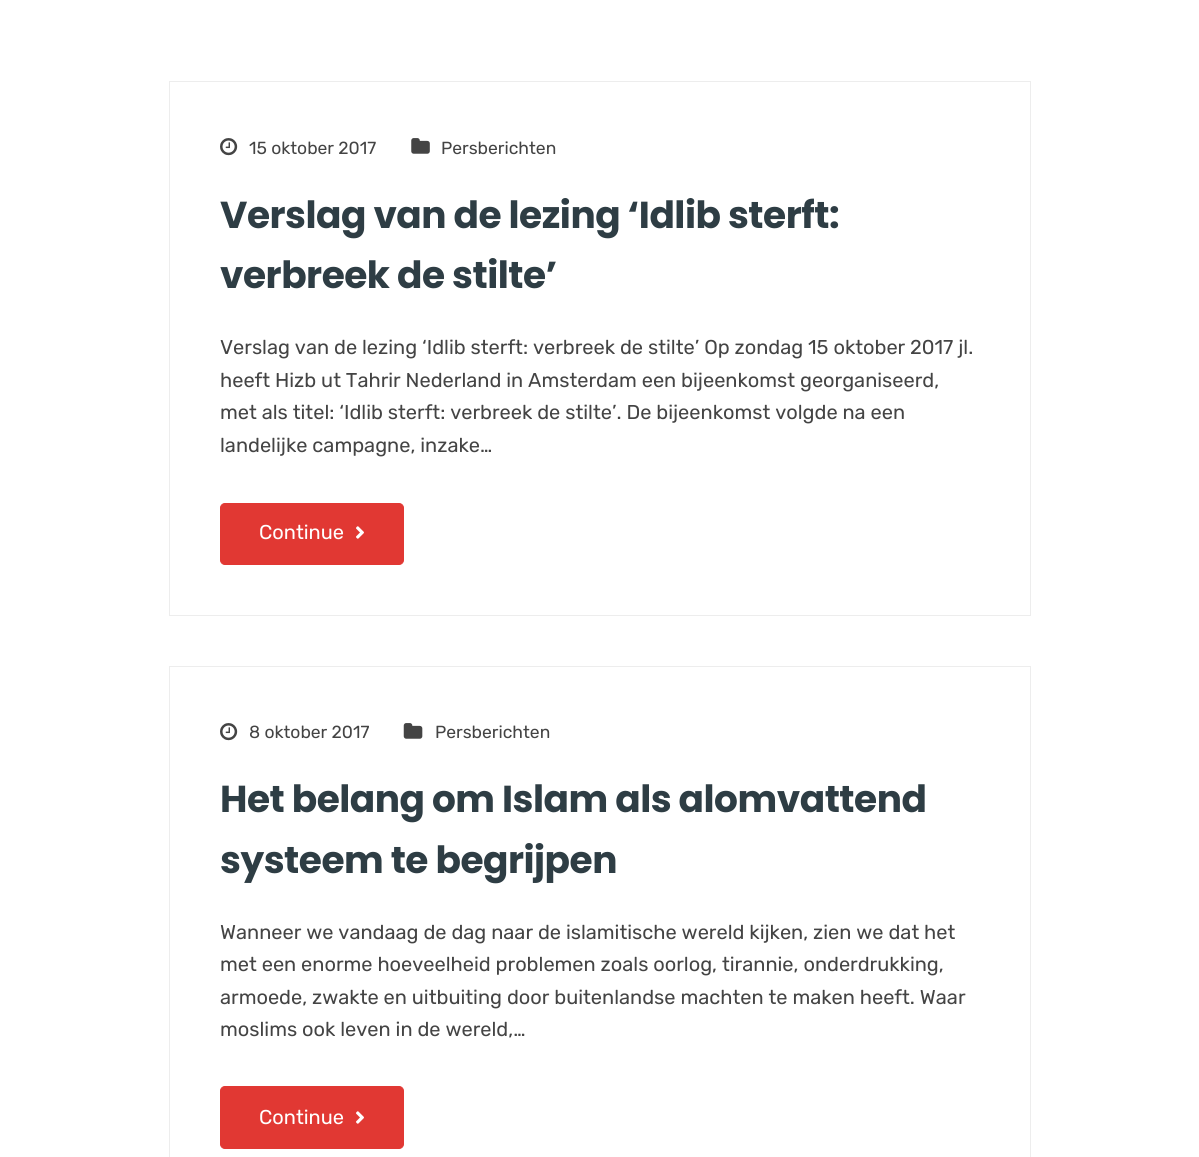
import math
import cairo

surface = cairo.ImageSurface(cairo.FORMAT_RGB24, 1199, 1157)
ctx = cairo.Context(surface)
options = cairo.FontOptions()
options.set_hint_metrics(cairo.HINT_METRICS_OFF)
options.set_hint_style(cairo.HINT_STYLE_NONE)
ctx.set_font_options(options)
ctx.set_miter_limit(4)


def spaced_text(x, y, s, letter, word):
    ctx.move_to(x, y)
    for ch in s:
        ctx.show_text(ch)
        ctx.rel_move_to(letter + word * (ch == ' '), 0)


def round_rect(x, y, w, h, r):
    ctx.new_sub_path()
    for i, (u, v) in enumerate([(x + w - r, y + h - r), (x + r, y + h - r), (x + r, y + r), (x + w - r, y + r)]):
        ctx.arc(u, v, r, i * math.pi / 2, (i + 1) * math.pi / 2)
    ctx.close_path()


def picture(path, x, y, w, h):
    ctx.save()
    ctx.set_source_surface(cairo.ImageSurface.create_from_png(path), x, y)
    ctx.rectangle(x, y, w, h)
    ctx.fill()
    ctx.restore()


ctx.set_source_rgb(1, 1, 1)
ctx.paint()
ctx.rectangle(169.5, 81.5, 861, 534)
ctx.set_source_rgb(0.929, 0.929, 0.929)
ctx.set_line_width(1)
ctx.stroke()
picture("img1.png", 220, 138, 18, 18)
ctx.select_font_face("Rubik")
ctx.set_font_size(17.5)
ctx.set_source_rgb(0.267, 0.267, 0.267)
ctx.move_to(249, 154)
ctx.show_text("15 oktober 2017")
picture("img2.png", 411, 138, 19, 16)
ctx.move_to(441, 154)
ctx.show_text("Persberichten")
ctx.select_font_face("Poppins", cairo.FONT_SLANT_NORMAL, cairo.FONT_WEIGHT_BOLD)
ctx.set_font_size(37.5)
ctx.set_source_rgb(0.18, 0.239, 0.267)
spaced_text(220, 228, "Verslag van de lezing ‘Idlib sterft:", -0.5, 0)
spaced_text(220, 288, "verbreek de stilte’", -0.5, 0)
ctx.select_font_face("Rubik")
ctx.set_font_size(20)
ctx.set_source_rgb(0.267, 0.267, 0.267)
ctx.move_to(220, 354)
ctx.show_text("Verslag van de lezing ‘Idlib sterft: verbreek de stilte’ Op zondag 15 oktober 2017 jl.")
ctx.move_to(220, 387)
ctx.show_text("heeft Hizb ut Tahrir Nederland in Amsterdam een bijeenkomst georganiseerd,")
ctx.move_to(220, 419)
ctx.show_text("met als titel: ‘Idlib sterft: verbreek de stilte’. De bijeenkomst volgde na een")
ctx.move_to(220, 452)
ctx.show_text("landelijke campagne, inzake…")
ctx.set_source_rgb(0.882, 0.22, 0.2)
round_rect(220.5, 503.5, 183, 61, 4.5)
ctx.fill_preserve()
ctx.stroke()
ctx.set_source_rgb(1, 1, 1)
ctx.move_to(259, 539)
ctx.show_text("Continue")
picture("img3.png", 356, 526, 8, 13)
ctx.rectangle(169.5, 666.5, 861, 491)
ctx.set_source_rgb(0.929, 0.929, 0.929)
ctx.stroke()
picture("img1.png", 220, 723, 18, 18)
ctx.set_font_size(17.5)
ctx.set_source_rgb(0.267, 0.267, 0.267)
ctx.move_to(249, 738)
ctx.show_text("8 oktober 2017")
picture("img4.png", 403, 723, 20, 16)
ctx.move_to(435, 738)
ctx.show_text("Persberichten")
ctx.select_font_face("Poppins", cairo.FONT_SLANT_NORMAL, cairo.FONT_WEIGHT_BOLD)
ctx.set_font_size(37.5)
ctx.set_source_rgb(0.18, 0.239, 0.267)
spaced_text(220, 812, "Het belang om Islam als alomvattend", -0.5, 0)
spaced_text(220, 873, "systeem te begrijpen", -0.5, 0)
ctx.select_font_face("Rubik")
ctx.set_font_size(20)
ctx.set_source_rgb(0.267, 0.267, 0.267)
ctx.move_to(220, 939)
ctx.show_text("Wanneer we vandaag de dag naar de islamitische wereld kijken, zien we dat het")
ctx.move_to(220, 971)
ctx.show_text("met een enorme hoeveelheid problemen zoals oorlog, tirannie, onderdrukking,")
ctx.move_to(220, 1004)
ctx.show_text("armoede, zwakte en uitbuiting door buitenlandse machten te maken heeft. Waar")
ctx.move_to(220, 1036)
ctx.show_text("moslims ook leven in de wereld,…")
ctx.set_source_rgb(0.882, 0.22, 0.2)
round_rect(220.5, 1086.5, 183, 62, 4.5)
ctx.fill_preserve()
ctx.stroke()
ctx.set_source_rgb(1, 1, 1)
ctx.move_to(259, 1124)
ctx.show_text("Continue")
picture("img3.png", 356, 1111, 8, 13)
surface.write_to_png("page.png")
